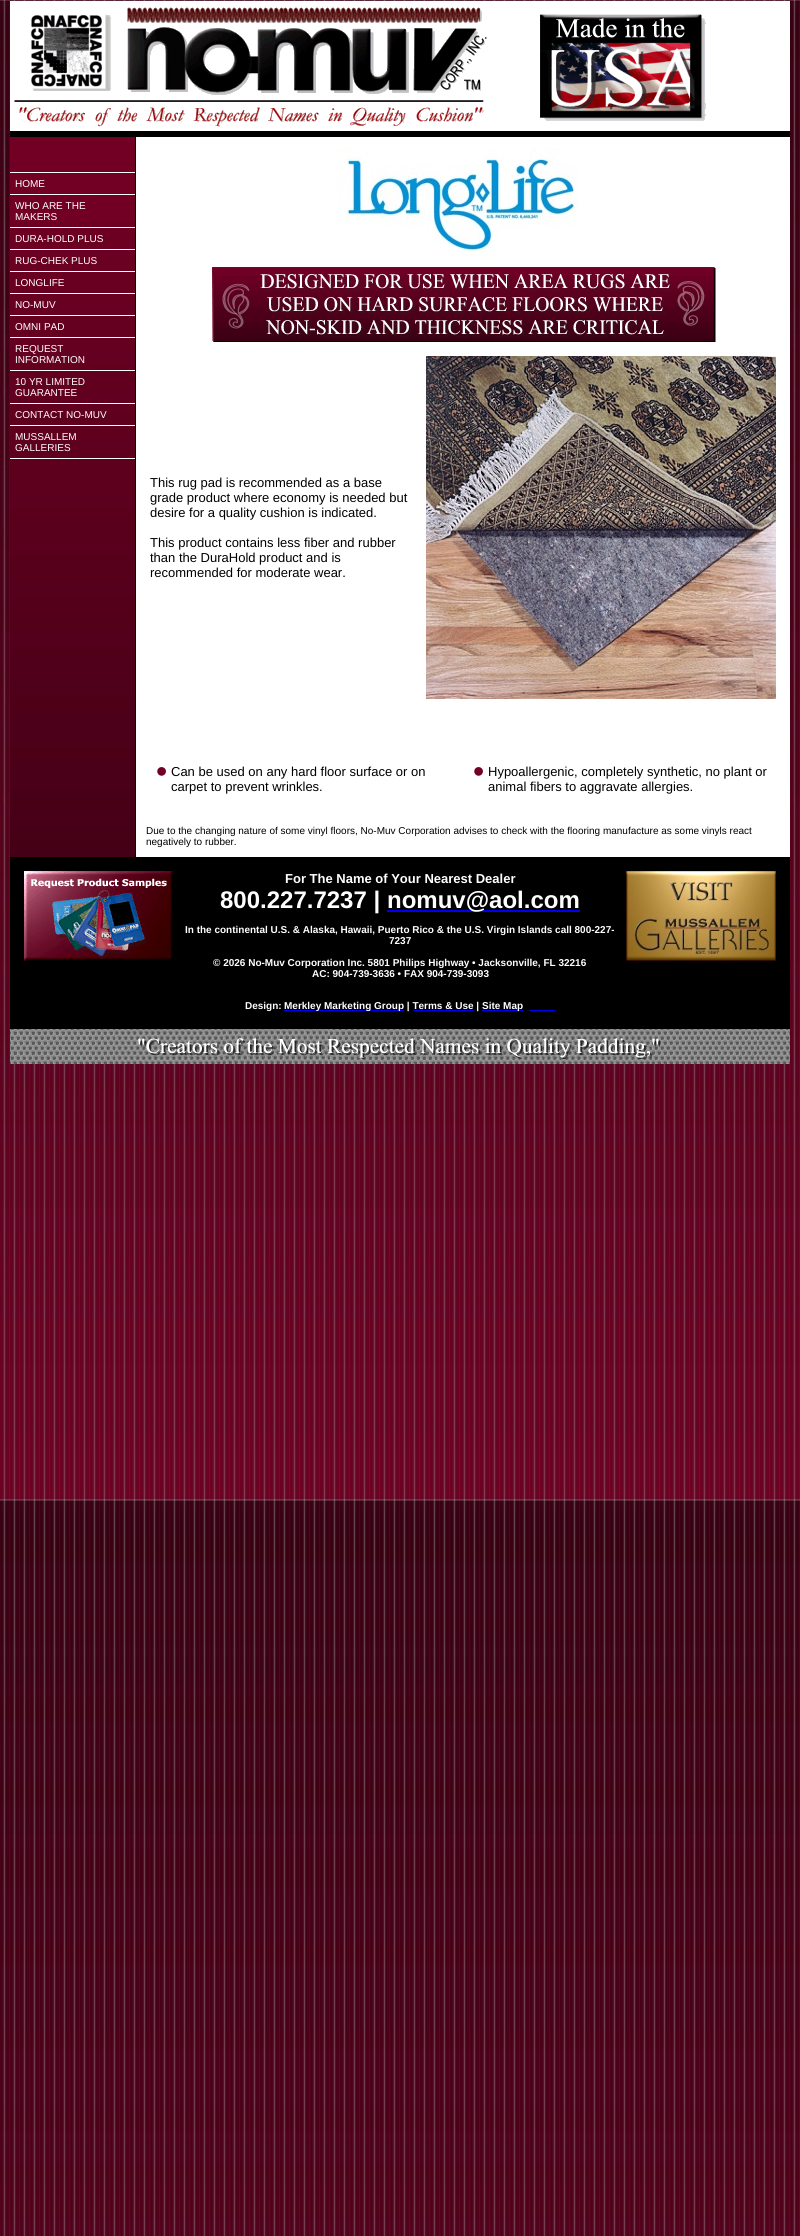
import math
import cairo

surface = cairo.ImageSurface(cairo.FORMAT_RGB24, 800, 2236)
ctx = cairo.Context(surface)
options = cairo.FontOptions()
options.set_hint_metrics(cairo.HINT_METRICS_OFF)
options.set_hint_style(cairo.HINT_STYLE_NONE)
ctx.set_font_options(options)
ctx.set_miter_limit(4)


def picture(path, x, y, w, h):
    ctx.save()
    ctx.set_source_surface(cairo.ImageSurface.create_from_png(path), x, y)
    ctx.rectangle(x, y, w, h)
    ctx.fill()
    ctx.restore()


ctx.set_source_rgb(1, 1, 1)
ctx.paint()
picture("img1.png", 0, 0, 800, 2236)
ctx.set_source_rgb(1, 1, 1)
ctx.rectangle(10, 1, 780, 130)
ctx.fill()
picture("img2.png", 14, 7, 692, 120)
ctx.set_source_rgb(0, 0, 0)
ctx.rectangle(10, 131, 780, 6)
ctx.fill()
ctx.set_source_rgb(0.447, 0, 0.145)
ctx.rectangle(10, 137, 125, 85)
ctx.fill()
picture("img3.png", 10, 222, 125, 635)
ctx.set_source_rgb(1, 1, 1)
ctx.rectangle(10, 172, 125, 1)
ctx.fill()
ctx.select_font_face("Liberation Sans")
ctx.set_font_size(10)
ctx.move_to(15, 187)
ctx.show_text("HOME")
ctx.rectangle(10, 194, 125, 1)
ctx.fill()
ctx.move_to(15, 209)
ctx.show_text("WHO ARE THE")
ctx.move_to(15, 220)
ctx.show_text("MAKERS")
ctx.rectangle(10, 227, 125, 1)
ctx.fill()
ctx.move_to(15, 242)
ctx.show_text("DURA-HOLD PLUS")
ctx.rectangle(10, 249, 125, 1)
ctx.fill()
ctx.move_to(15, 264)
ctx.show_text("RUG-CHEK PLUS")
ctx.rectangle(10, 271, 125, 1)
ctx.fill()
ctx.move_to(15, 286)
ctx.show_text("LONGLIFE")
ctx.rectangle(10, 293, 125, 1)
ctx.fill()
ctx.move_to(15, 308)
ctx.show_text("NO-MUV")
ctx.rectangle(10, 315, 125, 1)
ctx.fill()
ctx.move_to(15, 330)
ctx.show_text("OMNI PAD")
ctx.rectangle(10, 337, 125, 1)
ctx.fill()
ctx.move_to(15, 352)
ctx.show_text("REQUEST")
ctx.move_to(15, 363)
ctx.show_text("INFORMATION")
ctx.rectangle(10, 370, 125, 1)
ctx.fill()
ctx.move_to(15, 385)
ctx.show_text("10 YR LIMITED")
ctx.move_to(15, 396)
ctx.show_text("GUARANTEE")
ctx.rectangle(10, 403, 125, 1)
ctx.fill()
ctx.move_to(15, 418)
ctx.show_text("CONTACT NO-MUV")
ctx.rectangle(10, 425, 125, 1)
ctx.fill()
ctx.rectangle(10, 458, 125, 1)
ctx.fill()
ctx.move_to(15, 440)
ctx.show_text("MUSSALLEM")
ctx.move_to(15, 451)
ctx.show_text("GALLERIES")
ctx.set_source_rgb(0, 0, 0)
ctx.rectangle(135, 137, 1, 720)
ctx.fill()
ctx.set_source_rgb(1, 1, 1)
ctx.rectangle(136, 137, 654, 720)
ctx.fill()
picture("img4.png", 338, 148, 240, 109)
picture("img5.png", 212, 267, 504, 75)
ctx.set_font_size(13)
ctx.set_source_rgb(0, 0, 0)
ctx.move_to(150, 487)
ctx.show_text("This rug pad is recommended as a base")
ctx.move_to(150, 502)
ctx.show_text("grade product where economy is needed but")
ctx.move_to(150, 517)
ctx.show_text("desire for a quality cushion is indicated.")
ctx.move_to(150, 547)
ctx.show_text("This product contains less fiber and rubber")
ctx.move_to(150, 562)
ctx.show_text("than the DuraHold product and is")
ctx.move_to(150, 577)
ctx.show_text("recommended for moderate wear.")
picture("img6.png", 426, 356, 350, 343)
ctx.set_font_size(32)
ctx.set_source_rgb(0.447, 0, 0.145)
ctx.move_to(156, 782)
ctx.show_text("•")
ctx.set_font_size(13)
ctx.set_source_rgb(0, 0, 0)
ctx.move_to(171, 776)
ctx.show_text("Can be used on any hard floor surface or on")
ctx.move_to(171, 791)
ctx.show_text("carpet to prevent wrinkles.")
ctx.set_font_size(32)
ctx.set_source_rgb(0.447, 0, 0.145)
ctx.move_to(473, 782)
ctx.show_text("•")
ctx.set_font_size(13)
ctx.set_source_rgb(0, 0, 0)
ctx.move_to(488, 776)
ctx.show_text("Hypoallergenic, completely synthetic, no plant or")
ctx.move_to(488, 791)
ctx.show_text("animal fibers to aggravate allergies.")
ctx.set_font_size(10)
ctx.move_to(146, 834)
ctx.show_text("Due to the changing nature of some vinyl floors, No-Muv Corporation advises to check with the flooring manufacture as some vinyls react")
ctx.move_to(146, 845)
ctx.show_text("negatively to rubber.")
ctx.rectangle(10, 857, 780, 172)
ctx.fill()
picture("img7.png", 24, 871, 150, 90)
ctx.select_font_face("Liberation Sans", cairo.FONT_SLANT_NORMAL, cairo.FONT_WEIGHT_BOLD)
ctx.set_font_size(13)
ctx.set_source_rgb(1, 1, 1)
ctx.move_to(285, 883)
ctx.show_text("For The Name of Your Nearest Dealer")
ctx.set_font_size(24)
ctx.move_to(220, 908)
ctx.show_text("800.227.7237 |")
ctx.set_source_rgb(0, 0, 0.933)
ctx.rectangle(387, 910, 193, 2)
ctx.fill()
ctx.set_source_rgb(1, 1, 1)
ctx.move_to(387, 908)
ctx.show_text("nomuv@aol.com")
ctx.set_font_size(10)
ctx.move_to(185, 933)
ctx.show_text("In the continental U.S. & Alaska, Hawaii, Puerto Rico & the U.S. Virgin Islands call 800-227-")
ctx.move_to(389, 944)
ctx.show_text("7237")
ctx.move_to(213, 966)
ctx.show_text("© 2026 No-Muv Corporation Inc. 5801 Philips Highway • Jacksonville, FL 32216")
ctx.move_to(312, 977)
ctx.show_text("AC: 904-739-3636 • FAX 904-739-3093")
ctx.move_to(245, 1009)
ctx.show_text("Design:")
ctx.set_source_rgb(0, 0, 0.933)
ctx.rectangle(284, 1010, 120, 1)
ctx.fill()
ctx.set_source_rgb(1, 1, 1)
ctx.move_to(284, 1009)
ctx.show_text("Merkley Marketing Group | Terms & Use |")
ctx.set_source_rgb(0, 0, 0.933)
ctx.rectangle(413, 1010, 61, 1)
ctx.fill()
ctx.rectangle(482, 1010, 41, 1)
ctx.fill()
ctx.set_source_rgb(1, 1, 1)
ctx.move_to(482, 1009)
ctx.show_text("Site Map")
ctx.set_source_rgb(0, 0, 0.933)
ctx.rectangle(529, 1010, 26, 1)
ctx.fill()
picture("img8.png", 626, 871, 150, 90)
picture("img9.png", 10, 1029, 780, 35)
surface.write_to_png("page.png")
